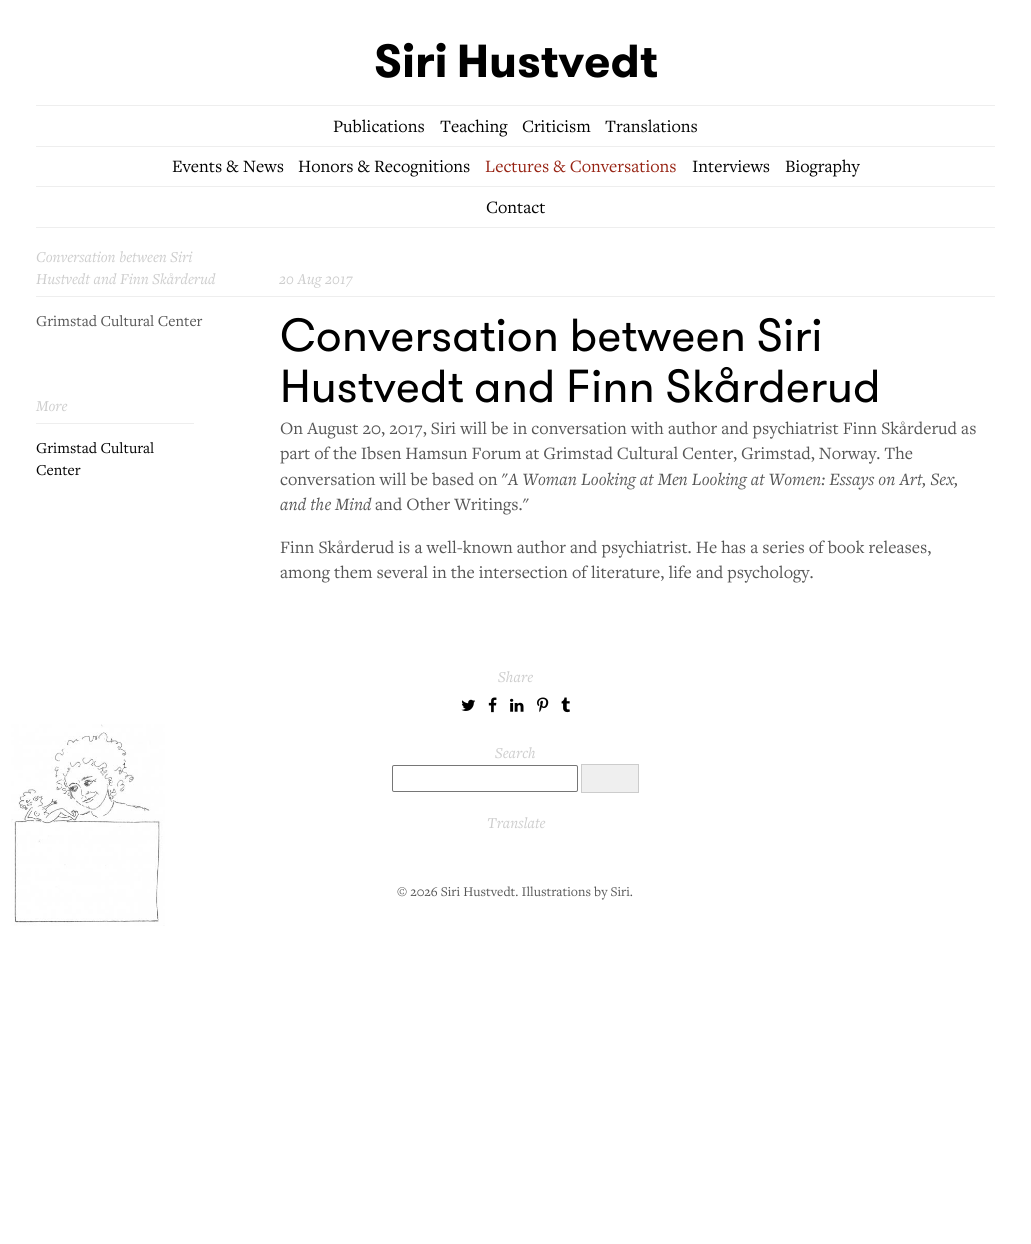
import math
import cairo

surface = cairo.ImageSurface(cairo.FORMAT_RGB24, 1031, 1244)
ctx = cairo.Context(surface)
options = cairo.FontOptions()
options.set_hint_metrics(cairo.HINT_METRICS_OFF)
options.set_hint_style(cairo.HINT_STYLE_NONE)
ctx.set_font_options(options)
ctx.set_miter_limit(4)


def spaced_text(x, y, s, letter, word):
    ctx.move_to(x, y)
    for ch in s:
        ctx.show_text(ch)
        ctx.rel_move_to(letter + word * (ch == ' '), 0)


def round_rect(x, y, w, h, r):
    ctx.new_sub_path()
    for i, (u, v) in enumerate([(x + w - r, y + h - r), (x + r, y + h - r), (x + r, y + r), (x + w - r, y + r)]):
        ctx.arc(u, v, r, i * math.pi / 2, (i + 1) * math.pi / 2)
    ctx.close_path()


def picture(path, x, y, w, h):
    ctx.save()
    ctx.set_source_surface(cairo.ImageSurface.create_from_png(path), x, y)
    ctx.rectangle(x, y, w, h)
    ctx.fill()
    ctx.restore()


ctx.set_source_rgb(1, 1, 1)
ctx.paint()
ctx.select_font_face("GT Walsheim", cairo.FONT_SLANT_NORMAL, cairo.FONT_WEIGHT_BOLD)
ctx.set_font_size(46.25)
ctx.set_source_rgb(0, 0, 0)
spaced_text(374, 77, "Siri Hustvedt", 0, -2)
ctx.set_source_rgb(0.933, 0.933, 0.933)
ctx.rectangle(36, 105, 959, 1)
ctx.fill()
ctx.rectangle(36, 146, 959, 1)
ctx.fill()
ctx.select_font_face("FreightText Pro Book")
ctx.set_font_size(18)
ctx.set_source_rgb(0, 0, 0)
ctx.move_to(333, 132)
ctx.show_text("Publications")
ctx.move_to(440, 132)
ctx.show_text("Teaching")
ctx.move_to(522, 132)
ctx.show_text("Criticism")
ctx.move_to(605, 132)
ctx.show_text("Translations")
ctx.set_source_rgb(0.933, 0.933, 0.933)
ctx.rectangle(36, 186, 959, 1)
ctx.fill()
ctx.set_source_rgb(0, 0, 0)
ctx.move_to(172, 172)
ctx.show_text("Events & News")
ctx.move_to(298, 172)
ctx.show_text("Honors & Recognitions")
ctx.set_source_rgb(0.592, 0.137, 0.075)
ctx.move_to(485, 172)
ctx.show_text("Lectures & Conversations")
ctx.set_source_rgb(0, 0, 0)
ctx.move_to(692, 172)
ctx.show_text("Interviews")
ctx.move_to(785, 172)
ctx.show_text("Biography")
ctx.set_source_rgb(0.933, 0.933, 0.933)
ctx.rectangle(36, 227, 959, 1)
ctx.fill()
ctx.set_source_rgb(0, 0, 0)
ctx.move_to(486, 213)
ctx.show_text("Contact")
ctx.set_source_rgb(0.933, 0.933, 0.933)
ctx.rectangle(36, 296, 959, 1)
ctx.fill()
ctx.select_font_face("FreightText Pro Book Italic", cairo.FONT_SLANT_ITALIC)
ctx.set_font_size(15.75)
ctx.set_source_rgb(0.8, 0.8, 0.8)
ctx.move_to(36, 262)
ctx.show_text("Conversation between Siri")
ctx.move_to(36, 284)
ctx.show_text("Hustvedt and Finn Skårderud")
ctx.move_to(279, 284)
ctx.show_text("20 Aug 2017")
ctx.select_font_face("FreightText Pro Book")
ctx.set_source_rgb(0.333, 0.333, 0.333)
ctx.move_to(36, 326)
ctx.show_text("Grimstad Cultural Center")
ctx.set_source_rgb(0.933, 0.933, 0.933)
ctx.rectangle(36, 423, 158, 1)
ctx.fill()
ctx.select_font_face("FreightText Pro Book Italic", cairo.FONT_SLANT_ITALIC)
ctx.set_source_rgb(0.8, 0.8, 0.8)
ctx.move_to(36, 411)
ctx.show_text("More")
ctx.select_font_face("FreightText Pro Book")
ctx.set_source_rgb(0, 0, 0)
ctx.move_to(36, 453)
ctx.show_text("Grimstad Cultural")
ctx.move_to(36, 475)
ctx.show_text("Center")
ctx.select_font_face("GT Walsheim")
ctx.set_font_size(46.25)
spaced_text(280, 351, "Conversation between Siri", 0, -1)
spaced_text(280, 402, "Hustvedt and Finn Skårderud", 0, -1)
ctx.select_font_face("FreightText Pro Book")
ctx.set_font_size(18)
ctx.set_source_rgb(0.333, 0.333, 0.333)
ctx.move_to(280, 434)
ctx.show_text("On August 20, 2017, Siri will be in conversation with author and psychiatrist Finn Skårderud as")
spaced_text(280, 459, "part of the Ibsen Hamsun Forum at Grimstad Cultural Center, Grimstad, Norway. The", 0, -0.25)
ctx.move_to(280, 485)
ctx.show_text("conversation will be based on \"")
ctx.select_font_face("FreightText Pro Book Italic", cairo.FONT_SLANT_ITALIC)
ctx.move_to(508, 485)
ctx.show_text("A Woman Looking at Men Looking at Women: Essays on Art, Sex,")
ctx.move_to(280, 510)
ctx.show_text("and the Mind")
ctx.select_font_face("FreightText Pro Book")
ctx.move_to(375, 510)
ctx.show_text("and Other Writings.\"")
ctx.move_to(280, 553)
ctx.show_text("Finn Skårderud is a well-known author and psychiatrist. He has a series of book releases,")
ctx.move_to(280, 578)
ctx.show_text("among them several in the intersection of literature, life and psychology.")
picture("img1.png", 11, 724, 154, 202)
ctx.select_font_face("FreightText Pro Book Italic", cairo.FONT_SLANT_ITALIC)
ctx.set_font_size(15.75)
ctx.set_source_rgb(0.8, 0.8, 0.8)
ctx.move_to(498, 682)
ctx.show_text("Share")
picture("img2.png", 461, 699, 15, 12)
picture("img3.png", 488, 697, 9, 16)
picture("img4.png", 510, 698, 14, 14)
picture("img5.png", 537, 697, 12, 16)
picture("img6.png", 561, 697, 9, 16)
ctx.move_to(495, 758)
ctx.show_text("Search")
round_rect(392.5, 765.5, 185, 26, 1.5)
ctx.set_source_rgb(0.463, 0.463, 0.463)
ctx.set_line_width(1)
ctx.stroke()
ctx.set_source_rgb(0.937, 0.937, 0.937)
ctx.rectangle(581.5, 764.5, 57, 28)
ctx.fill_preserve()
ctx.set_source_rgb(0.8, 0.8, 0.8)
ctx.stroke()
ctx.move_to(487, 828)
ctx.show_text("Translate")
ctx.select_font_face("FreightText Pro Book")
ctx.set_font_size(13.75)
ctx.set_source_rgb(0.333, 0.333, 0.333)
ctx.move_to(397, 896)
ctx.show_text("© 2026 Siri Hustvedt. Illustrations by Siri.")
surface.write_to_png("page.png")
